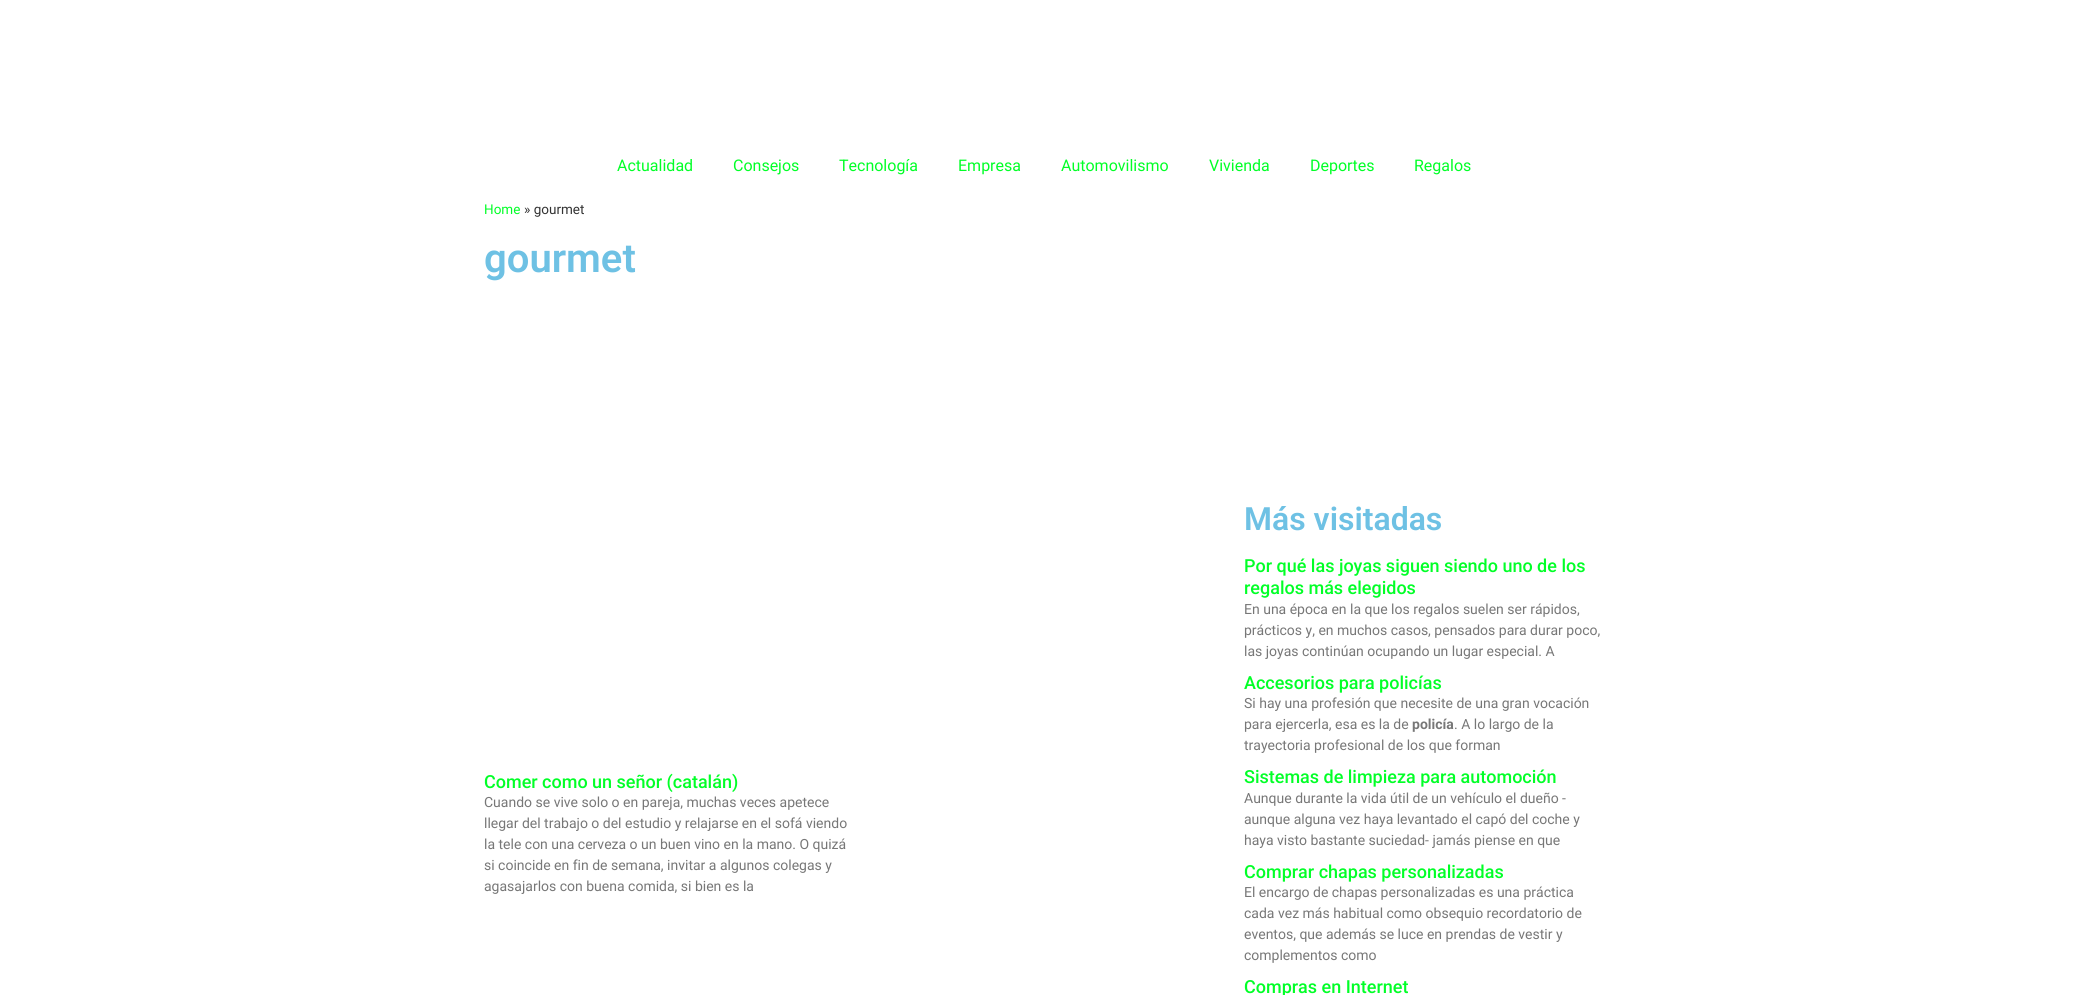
import math
import cairo

surface = cairo.ImageSurface(cairo.FORMAT_RGB24, 2088, 995)
ctx = cairo.Context(surface)
options = cairo.FontOptions()
options.set_hint_metrics(cairo.HINT_METRICS_OFF)
options.set_hint_style(cairo.HINT_STYLE_NONE)
ctx.set_font_options(options)
ctx.set_miter_limit(4)


ctx.set_source_rgb(1, 1, 1)
ctx.paint()
ctx.select_font_face("Roboto")
ctx.set_font_size(16)
ctx.set_source_rgb(0.004, 1, 0.153)
ctx.move_to(617, 171)
ctx.show_text("Actualidad")
ctx.move_to(733, 171)
ctx.show_text("Consejos")
ctx.move_to(839, 171)
ctx.show_text("Tecnología")
ctx.move_to(958, 171)
ctx.show_text("Empresa")
ctx.move_to(1061, 171)
ctx.show_text("Automovilismo")
ctx.move_to(1209, 171)
ctx.show_text("Vivienda")
ctx.move_to(1310, 171)
ctx.show_text("Deportes")
ctx.move_to(1414, 171)
ctx.show_text("Regalos")
ctx.set_font_size(13.5)
ctx.move_to(484, 214)
ctx.show_text("Home")
ctx.set_source_rgb(0.2, 0.2, 0.2)
ctx.move_to(524, 214)
ctx.show_text("» gourmet")
ctx.select_font_face("Roboto SemiBold")
ctx.set_font_size(40)
ctx.set_source_rgb(0.431, 0.757, 0.894)
ctx.move_to(484, 272)
ctx.show_text("gourmet")
ctx.select_font_face("Roboto Medium")
ctx.set_font_size(18)
ctx.set_source_rgb(0.004, 1, 0.153)
ctx.move_to(484, 788)
ctx.show_text("Comer como un señor (catalán)")
ctx.select_font_face("Roboto")
ctx.set_font_size(14)
ctx.set_source_rgb(0.467, 0.467, 0.467)
ctx.move_to(484, 807)
ctx.show_text("Cuando se vive solo o en pareja, muchas veces apetece")
ctx.move_to(484, 828)
ctx.show_text("llegar del trabajo o del estudio y relajarse en el sofá viendo")
ctx.move_to(484, 849)
ctx.show_text("la tele con una cerveza o un buen vino en la mano. O quizá")
ctx.move_to(484, 870)
ctx.show_text("si coincide en fin de semana, invitar a algunos colegas y")
ctx.move_to(484, 891)
ctx.show_text("agasajarlos con buena comida, si bien es la")
ctx.select_font_face("Roboto SemiBold")
ctx.set_font_size(32)
ctx.set_source_rgb(0.431, 0.757, 0.894)
ctx.move_to(1244, 530)
ctx.show_text("Más visitadas")
ctx.select_font_face("Roboto Medium")
ctx.set_font_size(18)
ctx.set_source_rgb(0.004, 1, 0.153)
ctx.move_to(1244, 572)
ctx.show_text("Por qué las joyas siguen siendo uno de los")
ctx.move_to(1244, 594)
ctx.show_text("regalos más elegidos")
ctx.select_font_face("Roboto")
ctx.set_font_size(14)
ctx.set_source_rgb(0.467, 0.467, 0.467)
ctx.move_to(1244, 614)
ctx.show_text("En una época en la que los regalos suelen ser rápidos,")
ctx.move_to(1244, 635)
ctx.show_text("prácticos y, en muchos casos, pensados para durar poco,")
ctx.move_to(1244, 656)
ctx.show_text("las joyas continúan ocupando un lugar especial. A")
ctx.select_font_face("Roboto Medium")
ctx.set_font_size(18)
ctx.set_source_rgb(0.004, 1, 0.153)
ctx.move_to(1244, 689)
ctx.show_text("Accesorios para policías")
ctx.select_font_face("Roboto")
ctx.set_font_size(14)
ctx.set_source_rgb(0.467, 0.467, 0.467)
ctx.move_to(1244, 708)
ctx.show_text("Si hay una profesión que necesite de una gran vocación")
ctx.move_to(1244, 729)
ctx.show_text("para ejercerla, esa es la de")
ctx.select_font_face("Roboto", cairo.FONT_SLANT_NORMAL, cairo.FONT_WEIGHT_BOLD)
ctx.move_to(1412, 729)
ctx.show_text("policía")
ctx.select_font_face("Roboto")
ctx.move_to(1454, 729)
ctx.show_text(". A lo largo de la")
ctx.move_to(1244, 750)
ctx.show_text("trayectoria profesional de los que forman")
ctx.select_font_face("Roboto Medium")
ctx.set_font_size(18)
ctx.set_source_rgb(0.004, 1, 0.153)
ctx.move_to(1244, 783)
ctx.show_text("Sistemas de limpieza para automoción")
ctx.select_font_face("Roboto")
ctx.set_font_size(14)
ctx.set_source_rgb(0.467, 0.467, 0.467)
ctx.move_to(1244, 803)
ctx.show_text("Aunque durante la vida útil de un vehículo el dueño -")
ctx.move_to(1244, 824)
ctx.show_text("aunque alguna vez haya levantado el capó del coche y")
ctx.move_to(1244, 845)
ctx.show_text("haya visto bastante suciedad- jamás piense en que")
ctx.select_font_face("Roboto Medium")
ctx.set_font_size(18)
ctx.set_source_rgb(0.004, 1, 0.153)
ctx.move_to(1244, 878)
ctx.show_text("Comprar chapas personalizadas")
ctx.select_font_face("Roboto")
ctx.set_font_size(14)
ctx.set_source_rgb(0.467, 0.467, 0.467)
ctx.move_to(1244, 897)
ctx.show_text("El encargo de chapas personalizadas es una práctica")
ctx.move_to(1244, 918)
ctx.show_text("cada vez más habitual como obsequio recordatorio de")
ctx.move_to(1244, 939)
ctx.show_text("eventos, que además se luce en prendas de vestir y")
ctx.move_to(1244, 960)
ctx.show_text("complementos como")
ctx.select_font_face("Roboto Medium")
ctx.set_font_size(18)
ctx.set_source_rgb(0.004, 1, 0.153)
ctx.move_to(1244, 993)
ctx.show_text("Compras en Internet")
surface.write_to_png("page.png")
